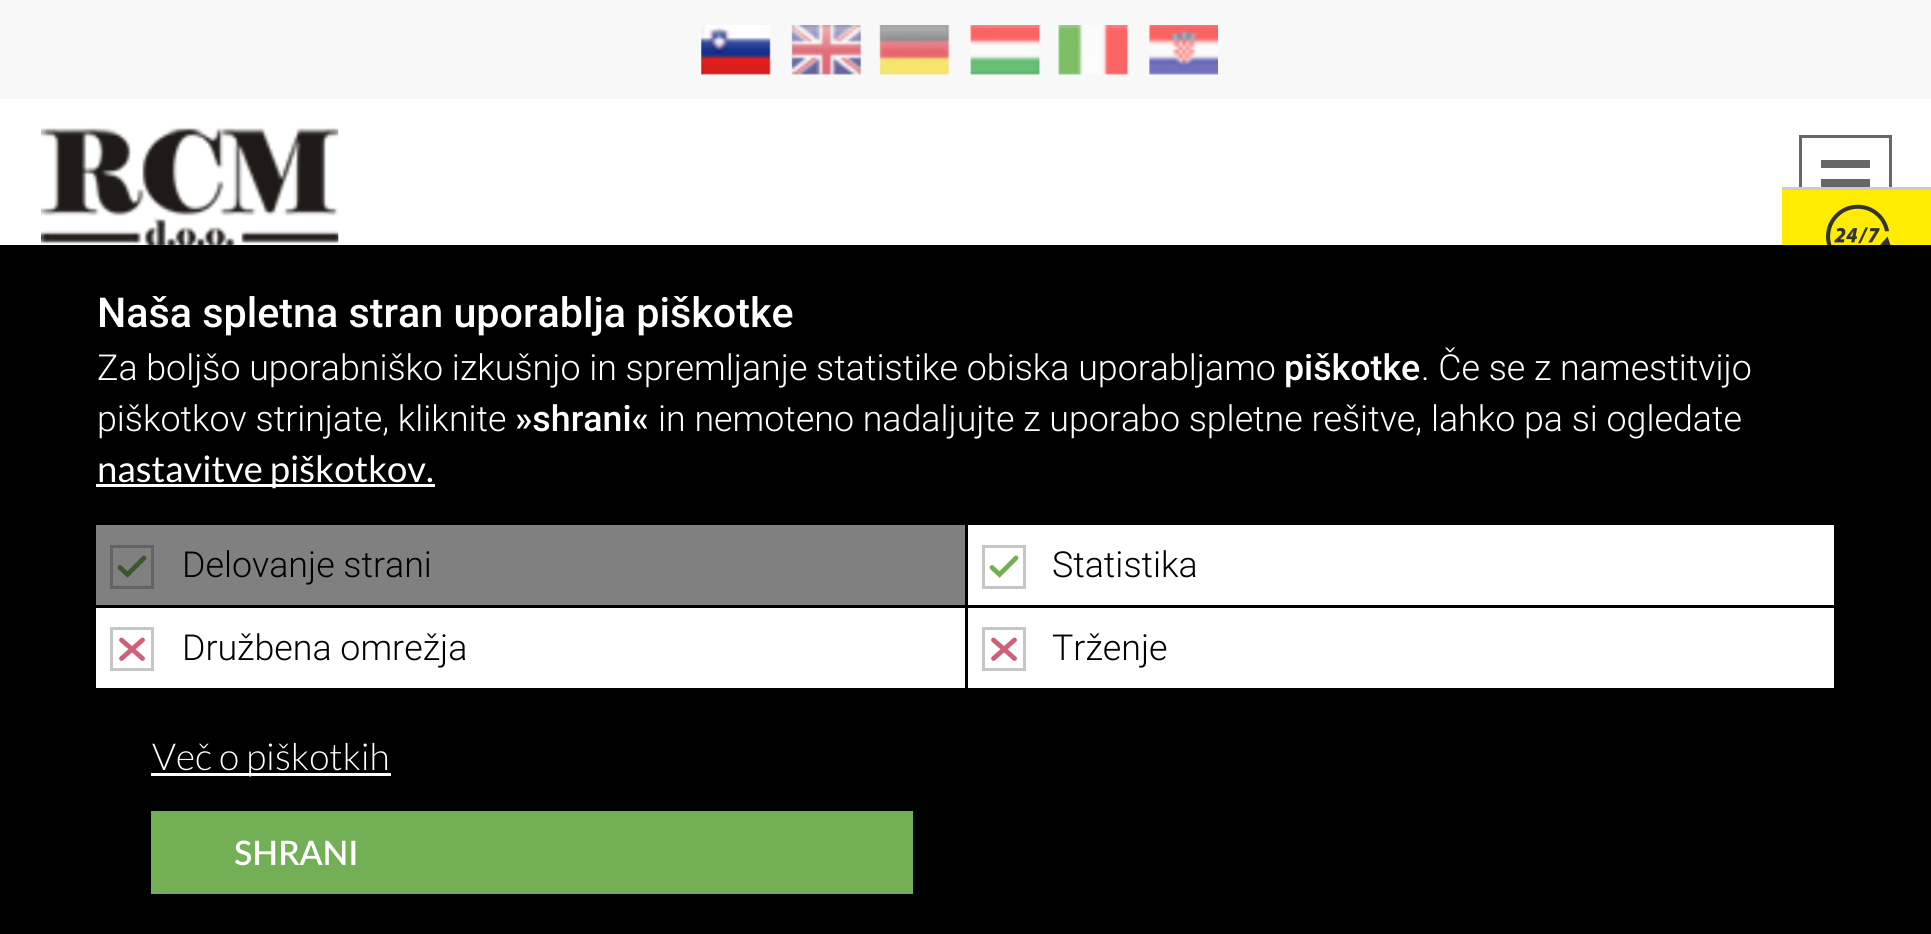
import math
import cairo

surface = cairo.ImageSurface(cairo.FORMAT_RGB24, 1931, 934)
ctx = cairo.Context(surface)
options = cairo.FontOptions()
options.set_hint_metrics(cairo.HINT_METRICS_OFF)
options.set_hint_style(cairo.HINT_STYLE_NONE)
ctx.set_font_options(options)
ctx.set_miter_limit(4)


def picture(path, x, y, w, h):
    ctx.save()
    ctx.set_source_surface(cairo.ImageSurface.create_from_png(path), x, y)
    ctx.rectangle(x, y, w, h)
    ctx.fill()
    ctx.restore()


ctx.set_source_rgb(1, 1, 1)
ctx.paint()
ctx.set_source_rgb(0.969, 0.969, 0.969)
ctx.rectangle(0, 0, 1931, 99)
ctx.fill()
picture("img1.png", 701, 25, 70, 50)
picture("img2.png", 791, 25, 71, 50)
picture("img3.png", 879, 25, 71, 50)
picture("img4.png", 970, 25, 71, 50)
picture("img5.png", 1058, 25, 71, 50)
picture("img6.png", 1149, 25, 69, 50)
picture("img7.png", 41, 127, 298, 118)
ctx.rectangle(1800.5, 136.5, 90, 90)
ctx.set_source_rgb(0.404, 0.404, 0.404)
ctx.set_line_width(3)
ctx.stroke()
ctx.rectangle(1821, 179, 49, 8)
ctx.fill()
ctx.rectangle(1821, 160, 49, 8)
ctx.fill()
ctx.set_source_rgb(0.8, 0.8, 0.8)
ctx.rectangle(1782, 187, 149, 3)
ctx.fill()
ctx.set_source_rgb(1, 0.925, 0.004)
ctx.rectangle(1782, 190, 149, 55)
ctx.fill()
picture("img8.png", 1826, 204, 65, 41)
ctx.set_source_rgb(0, 0, 0)
ctx.rectangle(0, 245, 1931, 689)
ctx.fill()
ctx.select_font_face("Roboto Medium")
ctx.set_font_size(41.25)
ctx.set_source_rgb(1, 1, 1)
ctx.move_to(97, 327)
ctx.show_text("Naša spletna stran uporablja piškotke")
ctx.select_font_face("Roboto Light")
ctx.set_font_size(35.75)
ctx.move_to(97, 380)
ctx.show_text("Za boljšo uporabniško izkušnjo in spremljanje statistike obiska uporabljamo")
ctx.select_font_face("Roboto Medium")
ctx.move_to(1284, 380)
ctx.show_text("piškotke")
ctx.select_font_face("Roboto Light")
ctx.move_to(1421, 380)
ctx.show_text(". Če se z namestitvijo")
ctx.move_to(97, 431)
ctx.show_text("piškotkov strinjate, kliknite")
ctx.select_font_face("Roboto Medium")
ctx.move_to(515, 431)
ctx.show_text("»shrani«")
ctx.select_font_face("Roboto Light")
ctx.move_to(658, 431)
ctx.show_text("in nemoteno nadaljujte z uporabo spletne rešitve, lahko pa si ogledate")
ctx.rectangle(96, 484, 339, 3)
ctx.fill()
ctx.select_font_face("Lato")
ctx.move_to(97, 482)
ctx.show_text("nastavitve piškotkov.")
ctx.set_source_rgb(0.502, 0.502, 0.502)
ctx.rectangle(96, 525, 869, 80)
ctx.fill()
ctx.new_path()
ctx.move_to(144, 558)
ctx.line_to(127.5, 574.5)
ctx.line_to(120, 567.5)
ctx.set_source_rgb(0.227, 0.345, 0.169)
ctx.set_line_width(4.8)
ctx.set_line_cap(cairo.LINE_CAP_ROUND)
ctx.stroke()
ctx.rectangle(111.5, 546.5, 41, 41)
ctx.set_source_rgb(0.388, 0.388, 0.388)
ctx.set_line_width(3)
ctx.set_line_cap(cairo.LINE_CAP_BUTT)
ctx.stroke()
ctx.select_font_face("Roboto Light")
ctx.set_source_rgb(0, 0, 0)
ctx.move_to(182, 577)
ctx.show_text("Delovanje strani")
ctx.set_source_rgb(1, 1, 1)
ctx.rectangle(968, 525, 866, 80)
ctx.fill()
ctx.new_path()
ctx.move_to(1016, 558)
ctx.line_to(999.5, 574.5)
ctx.line_to(992, 567.5)
ctx.set_source_rgb(0.451, 0.686, 0.333)
ctx.set_line_width(4.8)
ctx.set_line_cap(cairo.LINE_CAP_ROUND)
ctx.stroke()
ctx.rectangle(983.5, 546.5, 41, 41)
ctx.set_source_rgb(0.776, 0.776, 0.776)
ctx.set_line_width(3)
ctx.set_line_cap(cairo.LINE_CAP_BUTT)
ctx.stroke()
ctx.set_source_rgb(0, 0, 0)
ctx.move_to(1052, 577)
ctx.show_text("Statistika")
ctx.set_source_rgb(1, 1, 1)
ctx.rectangle(96, 608, 869, 80)
ctx.fill()
ctx.new_path()
ctx.move_to(121.5, 640)
ctx.line_to(142.5, 658.5)
ctx.move_to(142.5, 640)
ctx.line_to(121.5, 658.5)
ctx.set_source_rgb(0.816, 0.376, 0.475)
ctx.set_line_width(4.8)
ctx.set_line_cap(cairo.LINE_CAP_ROUND)
ctx.stroke()
ctx.rectangle(111.5, 628.5, 41, 41)
ctx.set_source_rgb(0.776, 0.776, 0.776)
ctx.set_line_width(3)
ctx.set_line_cap(cairo.LINE_CAP_BUTT)
ctx.stroke()
ctx.set_source_rgb(0, 0, 0)
ctx.move_to(182, 660)
ctx.show_text("Družbena omrežja")
ctx.set_source_rgb(1, 1, 1)
ctx.rectangle(968, 608, 866, 80)
ctx.fill()
ctx.new_path()
ctx.move_to(993.5, 640)
ctx.line_to(1014.5, 658.5)
ctx.move_to(1014.5, 640)
ctx.line_to(993.5, 658.5)
ctx.set_source_rgb(0.816, 0.376, 0.475)
ctx.set_line_width(4.8)
ctx.set_line_cap(cairo.LINE_CAP_ROUND)
ctx.stroke()
ctx.rectangle(983.5, 628.5, 41, 41)
ctx.set_source_rgb(0.776, 0.776, 0.776)
ctx.set_line_width(3)
ctx.set_line_cap(cairo.LINE_CAP_BUTT)
ctx.stroke()
ctx.set_source_rgb(0, 0, 0)
ctx.move_to(1052, 660)
ctx.show_text("Trženje")
ctx.set_source_rgb(1, 1, 1)
ctx.rectangle(151, 773, 240, 3)
ctx.fill()
ctx.select_font_face("Lato Light")
ctx.move_to(152, 770)
ctx.show_text("Več o piškotkih")
ctx.set_source_rgb(0.451, 0.686, 0.333)
ctx.rectangle(151, 811, 762, 83)
ctx.fill()
ctx.select_font_face("Lato SemiBold")
ctx.set_font_size(33)
ctx.set_source_rgb(1, 1, 1)
ctx.move_to(234, 865)
ctx.show_text("SHRANI")
surface.write_to_png("page.png")
